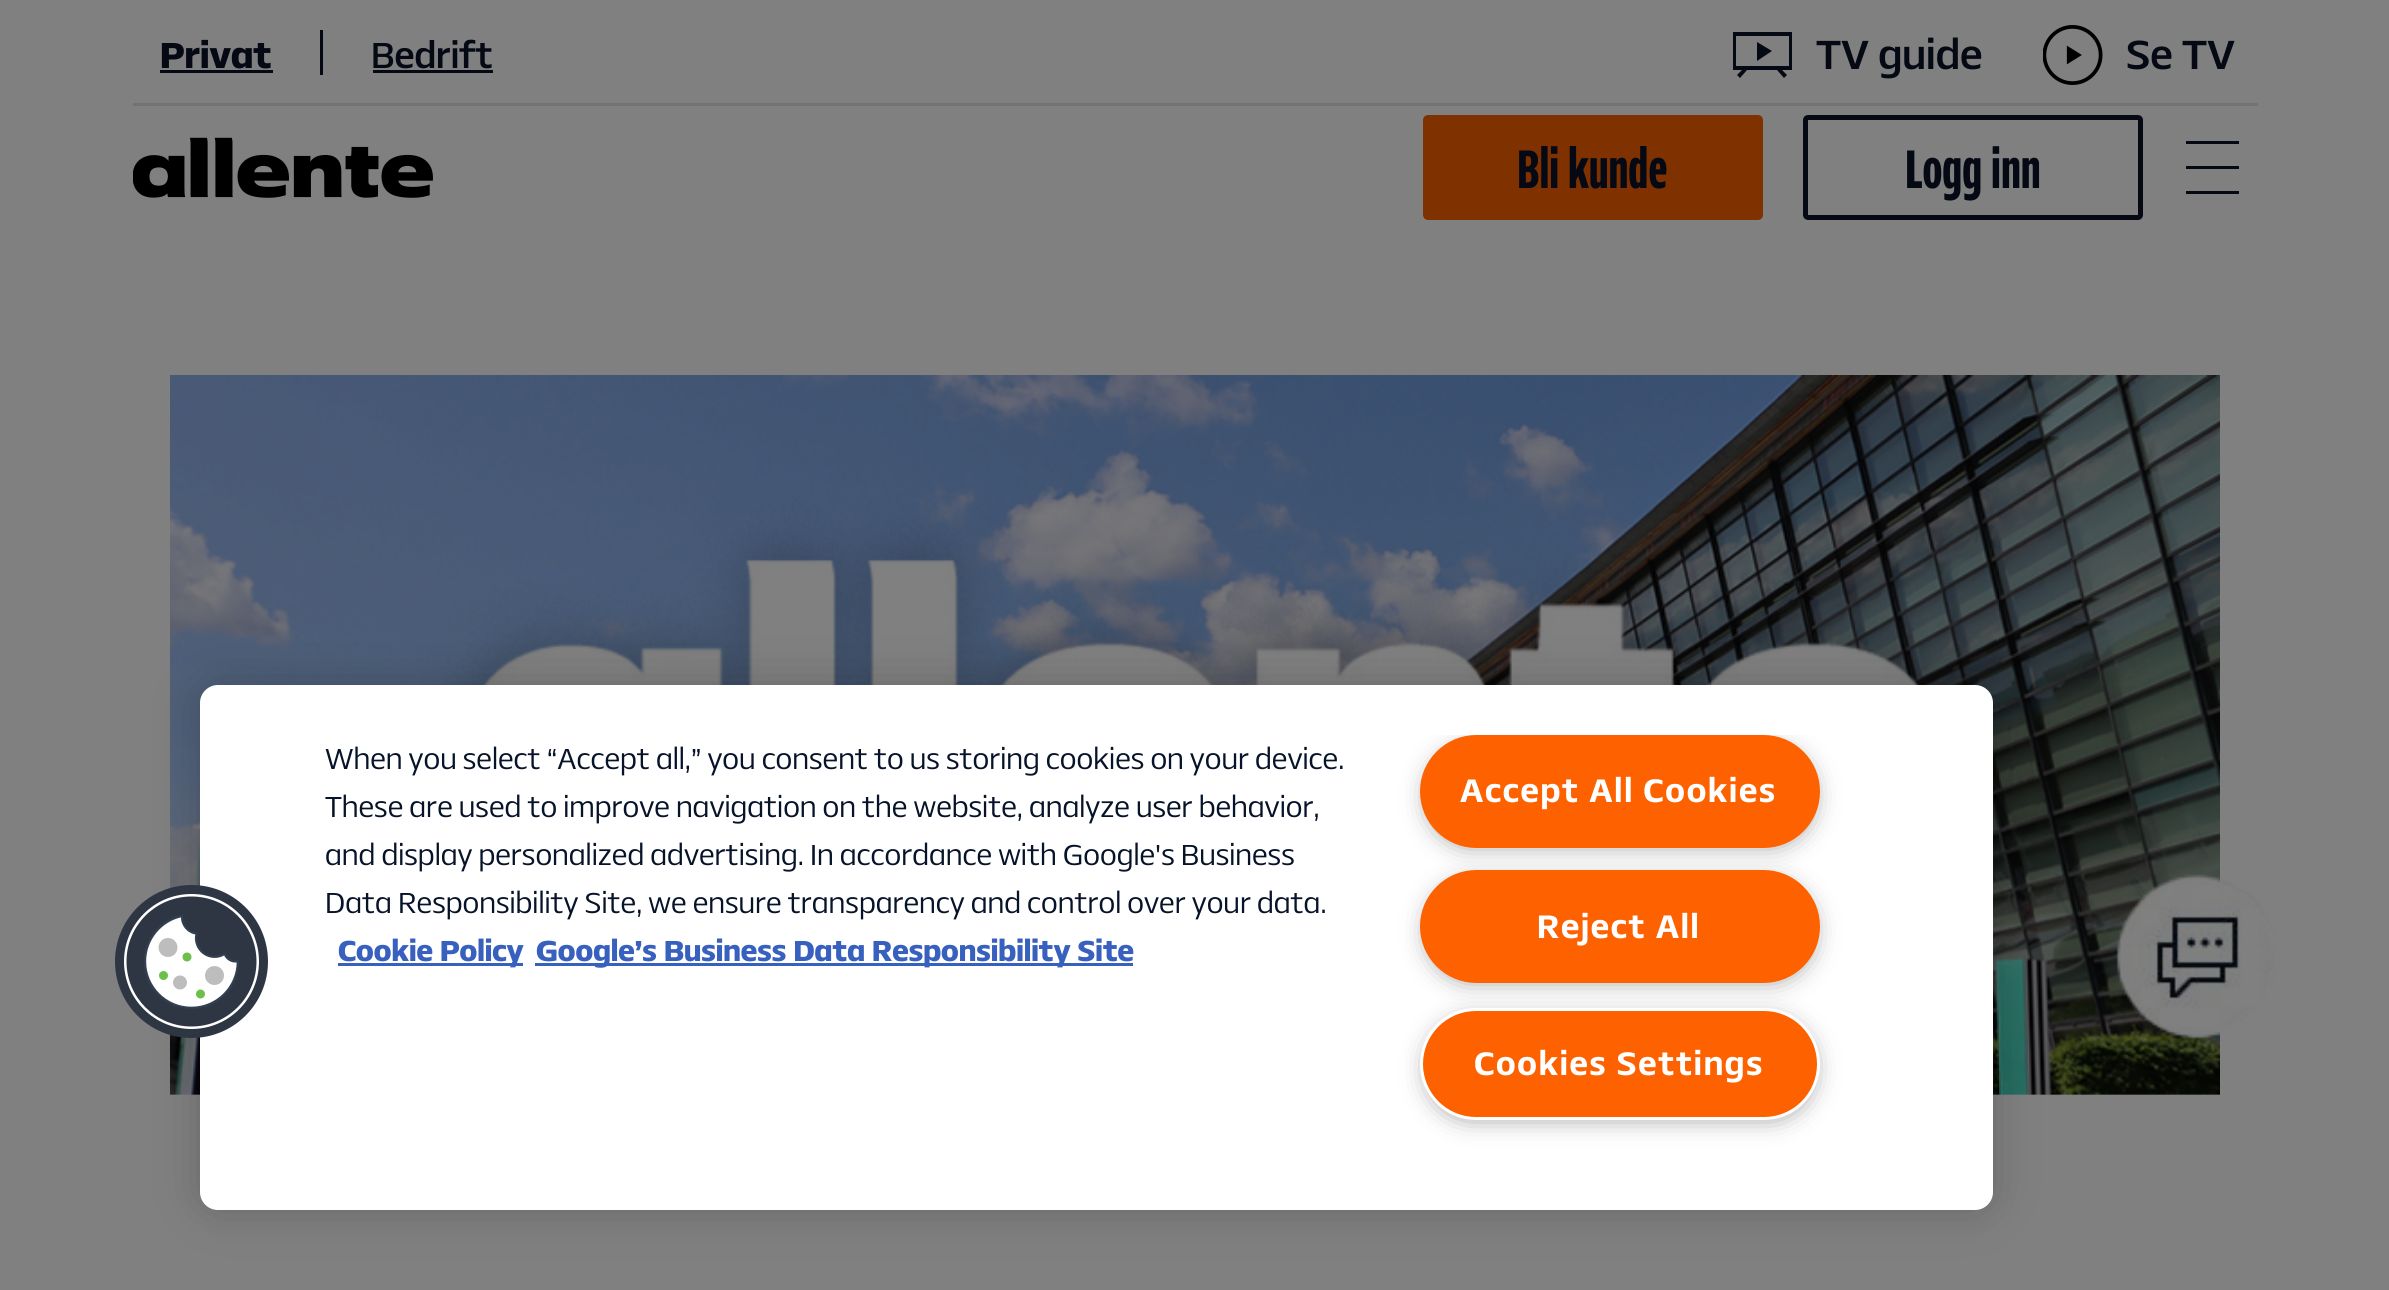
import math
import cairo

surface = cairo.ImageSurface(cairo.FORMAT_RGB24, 2389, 1290)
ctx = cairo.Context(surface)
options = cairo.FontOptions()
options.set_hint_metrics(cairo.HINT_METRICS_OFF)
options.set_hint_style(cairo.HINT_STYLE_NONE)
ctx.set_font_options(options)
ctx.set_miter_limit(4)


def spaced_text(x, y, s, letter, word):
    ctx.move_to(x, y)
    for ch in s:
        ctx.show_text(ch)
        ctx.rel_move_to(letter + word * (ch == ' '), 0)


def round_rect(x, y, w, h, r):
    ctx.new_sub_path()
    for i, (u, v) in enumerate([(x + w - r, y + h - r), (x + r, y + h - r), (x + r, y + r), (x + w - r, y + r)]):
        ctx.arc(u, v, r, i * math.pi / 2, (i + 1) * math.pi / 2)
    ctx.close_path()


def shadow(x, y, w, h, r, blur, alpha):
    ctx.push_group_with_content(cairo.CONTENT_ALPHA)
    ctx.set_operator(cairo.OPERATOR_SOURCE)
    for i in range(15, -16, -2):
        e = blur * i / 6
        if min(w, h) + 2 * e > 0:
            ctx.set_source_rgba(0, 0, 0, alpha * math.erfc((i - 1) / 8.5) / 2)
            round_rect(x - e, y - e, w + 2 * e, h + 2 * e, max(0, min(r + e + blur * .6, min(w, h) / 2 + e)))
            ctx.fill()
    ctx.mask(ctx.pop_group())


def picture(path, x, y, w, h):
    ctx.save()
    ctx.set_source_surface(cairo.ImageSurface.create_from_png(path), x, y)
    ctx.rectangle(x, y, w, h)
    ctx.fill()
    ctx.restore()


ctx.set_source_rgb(0.502, 0.502, 0.502)
ctx.paint()
ctx.set_source_rgb(0.451, 0.451, 0.451)
ctx.rectangle(133, 103, 2125, 3)
ctx.fill()
ctx.select_font_face("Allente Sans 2", cairo.FONT_SLANT_NORMAL, cairo.FONT_WEIGHT_BOLD)
ctx.set_font_size(40)
ctx.set_source_rgb(0.016, 0.039, 0.082)
ctx.move_to(160, 68)
ctx.show_text("Privat")
ctx.rectangle(160, 70, 113, 3)
ctx.fill()
ctx.rectangle(320, 30, 3, 45)
ctx.fill()
ctx.select_font_face("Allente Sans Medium")
ctx.move_to(371, 68)
ctx.show_text("Bedrift")
ctx.rectangle(373, 70, 120, 3)
ctx.fill()
ctx.save()
ctx.rectangle(1733, 25, 60, 60)
ctx.clip()
ctx.set_fill_rule(cairo.FILL_RULE_EVEN_ODD)
ctx.new_path()
ctx.move_to(1736, 36)
ctx.line_to(1789, 36)
ctx.line_to(1789, 66)
ctx.line_to(1736, 66)
ctx.close_path()
ctx.move_to(1732, 32)
ctx.line_to(1792, 32)
ctx.line_to(1792, 70)
ctx.line_to(1782, 70)
ctx.line_to(1787, 75)
ctx.line_to(1784, 78)
ctx.line_to(1777, 70)
ctx.line_to(1747, 70)
ctx.line_to(1740, 78)
ctx.line_to(1737, 75)
ctx.line_to(1742, 70)
ctx.line_to(1732, 70)
ctx.close_path()
ctx.move_to(1757, 42)
ctx.line_to(1772, 51)
ctx.line_to(1757, 61)
ctx.close_path()
ctx.fill()
ctx.restore()
ctx.set_font_size(45)
ctx.move_to(1816, 69)
ctx.show_text("TV guide")
picture("img1.png", 2043, 25, 60, 60)
ctx.move_to(2126, 69)
ctx.show_text("Se TV")
picture("img2.png", 133, 137, 300, 61)
ctx.set_source_rgb(0.498, 0.192, 0)
round_rect(1425.5, 117.5, 335, 100, 2.5)
ctx.fill_preserve()
ctx.set_line_width(5)
ctx.stroke()
ctx.select_font_face("Allente Sans", cairo.FONT_SLANT_NORMAL, cairo.FONT_WEIGHT_BOLD)
ctx.set_font_size(60)
ctx.set_source_rgb(0.016, 0.039, 0.082)
ctx.move_to(1517, 188)
ctx.show_text("Bli kunde")
round_rect(1805.5, 117.5, 335, 100, 2.5)
ctx.stroke()
ctx.move_to(1905, 188)
ctx.show_text("Logg inn")
ctx.new_path()
ctx.move_to(2239, 169)
ctx.line_to(2186, 169)
ctx.line_to(2186, 166)
ctx.line_to(2239, 166)
ctx.close_path()
ctx.move_to(2239, 141)
ctx.line_to(2186, 141)
ctx.line_to(2186, 144)
ctx.line_to(2239, 144)
ctx.close_path()
ctx.move_to(2239, 191)
ctx.line_to(2186, 191)
ctx.line_to(2186, 194)
ctx.line_to(2239, 194)
ctx.close_path()
ctx.fill()
picture("img3.png", 170, 375, 2050, 720)
ctx.set_source_rgb(0, 0, 0)
shadow(200, 685, 1793, 525, 18, 22.5, 0.2)
ctx.set_source_rgb(1, 1, 1)
round_rect(200, 685, 1793, 525, 18)
ctx.fill()
picture("img4.png", 115, 885, 153, 153)
ctx.select_font_face("Allente Sans")
ctx.set_font_size(32)
ctx.set_source_rgb(0.031, 0.078, 0.161)
ctx.move_to(325, 769)
ctx.show_text("When you select “Accept all,” you consent to us storing cookies on your device.")
ctx.move_to(325, 817)
ctx.show_text("These are used to improve navigation on the website, analyze user behavior,")
ctx.move_to(325, 865)
ctx.show_text("and display personalized advertising. In accordance with Google's Business")
ctx.move_to(325, 913)
ctx.show_text("Data Responsibility Site, we ensure transparency and control over your data.")
ctx.set_source_rgb(0.22, 0.376, 0.745)
ctx.rectangle(338, 963, 185, 3)
ctx.fill()
ctx.select_font_face("Allente Sans 2", cairo.FONT_SLANT_NORMAL, cairo.FONT_WEIGHT_BOLD)
ctx.move_to(338, 961)
ctx.show_text("Cookie Policy")
ctx.rectangle(535, 963, 598, 3)
ctx.fill()
ctx.move_to(536, 961)
ctx.show_text("Google’s Business Data Responsibility Site")
ctx.save()
ctx.rectangle(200, 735, 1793, 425)
ctx.clip()
ctx.set_source_rgb(0.6, 0.6, 0.6)
shadow(1428, 748, 385, 97, 48.5, 12.5, 1)
ctx.restore()
ctx.set_source_rgb(0.992, 0.38, 0)
round_rect(1421.5, 736.5, 397, 110, 55)
ctx.fill_preserve()
ctx.set_line_width(3)
ctx.stroke()
ctx.select_font_face("Allente Sans SemiBold")
ctx.set_font_size(36)
ctx.set_source_rgb(1, 1, 1)
spaced_text(1460, 802, "Accept All Cookies", 1.75, 0)
ctx.set_source_rgb(0.6, 0.6, 0.6)
shadow(1428, 883, 385, 97, 48.5, 12.5, 1)
ctx.set_source_rgb(0.992, 0.38, 0)
round_rect(1421.5, 871.5, 397, 110, 55)
ctx.fill_preserve()
ctx.stroke()
ctx.set_source_rgb(1, 1, 1)
spaced_text(1537, 938, "Reject All", 1.75, 0)
ctx.set_source_rgb(0.6, 0.6, 0.6)
shadow(1428, 1020, 385, 98, 49, 12.5, 1)
ctx.set_source_rgb(0.992, 0.38, 0)
round_rect(1421.5, 1009.5, 397, 109, 54.5)
ctx.fill_preserve()
ctx.set_source_rgb(1, 1, 1)
ctx.stroke()
spaced_text(1474, 1075, "Cookies Settings", 1.75, 0)
picture("img5.png", 2116, 874, 159, 165)
surface.write_to_png("page.png")
